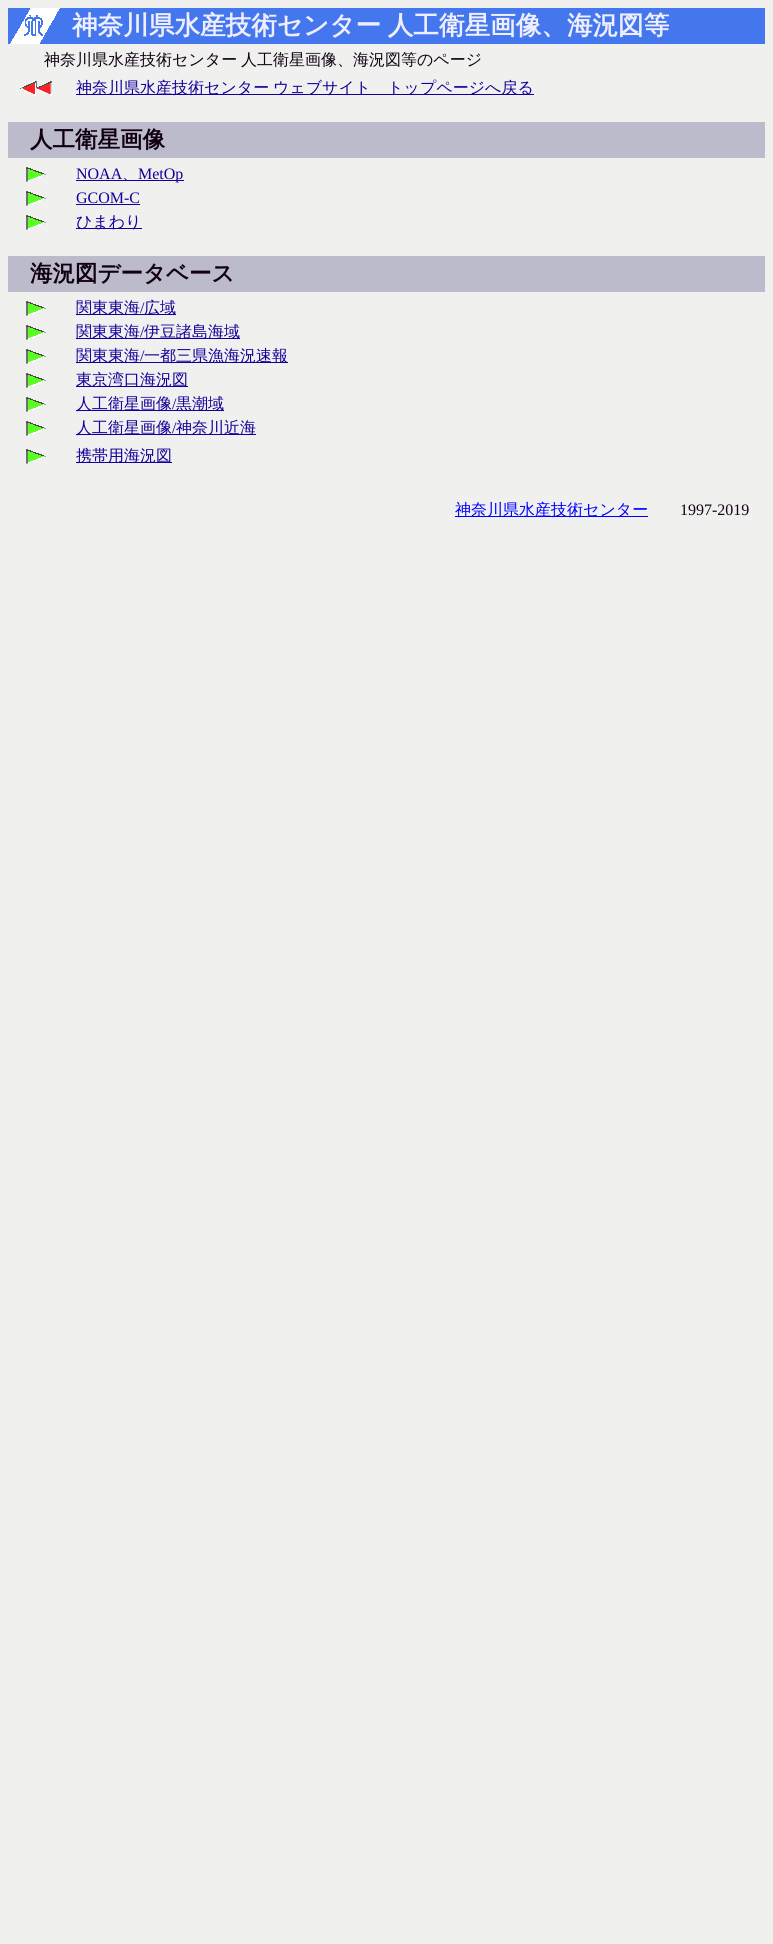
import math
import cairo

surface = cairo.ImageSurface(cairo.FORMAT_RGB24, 773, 1944)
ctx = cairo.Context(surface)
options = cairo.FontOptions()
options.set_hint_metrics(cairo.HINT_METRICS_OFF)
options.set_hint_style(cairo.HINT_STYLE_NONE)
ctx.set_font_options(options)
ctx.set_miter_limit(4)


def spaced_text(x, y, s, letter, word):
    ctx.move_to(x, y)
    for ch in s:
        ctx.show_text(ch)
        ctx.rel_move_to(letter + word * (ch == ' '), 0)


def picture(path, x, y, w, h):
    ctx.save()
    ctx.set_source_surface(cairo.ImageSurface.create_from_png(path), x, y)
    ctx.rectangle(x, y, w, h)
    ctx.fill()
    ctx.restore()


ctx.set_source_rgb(0.941, 0.941, 0.937)
ctx.paint()
ctx.set_source_rgb(0.267, 0.467, 0.933)
ctx.rectangle(8, 8, 757, 36)
ctx.fill()
picture("img1.png", 10, 8, 50, 36)
ctx.select_font_face("WenQuanYi Zen Hei", cairo.FONT_SLANT_NORMAL, cairo.FONT_WEIGHT_BOLD)
ctx.set_font_size(25.6)
ctx.set_source_rgb(0.933, 0.933, 1)
spaced_text(72, 34, "神奈川県水産技術センター 人工衛星画像、海況図等", 0, -1)
ctx.select_font_face("WenQuanYi Zen Hei Medium")
ctx.set_font_size(16)
ctx.set_source_rgb(0.067, 0, 0.067)
spaced_text(44, 65, "神奈川県水産技術センター 人工衛星画像、海況図等のページ", 0, -1)
picture("img2.png", 20, 81, 32, 15)
ctx.set_source_rgb(0.067, 0, 0.6)
ctx.rectangle(76, 94, 458, 1)
ctx.fill()
spaced_text(76, 93, "神奈川県水産技術センター ウェブサイト　トップページへ戻る", 0, -1)
ctx.set_source_rgb(0.733, 0.733, 0.8)
ctx.rectangle(8, 122, 757, 36)
ctx.fill()
ctx.select_font_face("WenQuanYi Zen Hei", cairo.FONT_SLANT_NORMAL, cairo.FONT_WEIGHT_BOLD)
ctx.set_font_size(22.5)
ctx.set_source_rgb(0.067, 0, 0.067)
ctx.move_to(30, 147)
ctx.show_text("人工衛星画像")
picture("img3.png", 26, 167, 20, 15)
ctx.select_font_face("Liberation Serif")
ctx.set_font_size(16)
ctx.set_source_rgb(0.067, 0, 0.6)
ctx.move_to(76, 179)
ctx.show_text("NOAA")
ctx.rectangle(76, 180, 108, 1)
ctx.fill()
ctx.select_font_face("WenQuanYi Zen Hei Medium")
ctx.move_to(122, 179)
ctx.show_text("、")
ctx.select_font_face("Liberation Serif")
ctx.move_to(138, 179)
ctx.show_text("MetOp")
picture("img3.png", 26, 191, 20, 15)
ctx.move_to(76, 203)
ctx.show_text("GCOM-C")
ctx.rectangle(76, 204, 64, 1)
ctx.fill()
picture("img3.png", 26, 215, 20, 15)
ctx.rectangle(76, 228, 66, 1)
ctx.fill()
ctx.select_font_face("WenQuanYi Zen Hei Medium")
ctx.move_to(76, 227)
ctx.show_text("ひまわり")
ctx.set_source_rgb(0.733, 0.733, 0.8)
ctx.rectangle(8, 256, 757, 36)
ctx.fill()
ctx.select_font_face("WenQuanYi Zen Hei", cairo.FONT_SLANT_NORMAL, cairo.FONT_WEIGHT_BOLD)
ctx.set_font_size(22.5)
ctx.set_source_rgb(0.067, 0, 0.067)
ctx.move_to(30, 281)
ctx.show_text("海況図データベース")
picture("img3.png", 26, 301, 20, 15)
ctx.set_source_rgb(0.067, 0, 0.6)
ctx.rectangle(76, 314, 100, 1)
ctx.fill()
ctx.select_font_face("WenQuanYi Zen Hei Medium")
ctx.set_font_size(16)
ctx.move_to(76, 313)
ctx.show_text("関東東海")
ctx.select_font_face("Liberation Serif")
ctx.move_to(140, 313)
ctx.show_text("/")
ctx.select_font_face("WenQuanYi Zen Hei Medium")
ctx.move_to(144, 313)
ctx.show_text("広域")
picture("img3.png", 26, 325, 20, 15)
ctx.rectangle(76, 338, 164, 1)
ctx.fill()
ctx.move_to(76, 337)
ctx.show_text("関東東海")
ctx.select_font_face("Liberation Serif")
ctx.move_to(140, 337)
ctx.show_text("/")
ctx.select_font_face("WenQuanYi Zen Hei Medium")
ctx.move_to(144, 337)
ctx.show_text("伊豆諸島海域")
picture("img3.png", 26, 349, 20, 15)
ctx.rectangle(76, 362, 212, 1)
ctx.fill()
ctx.move_to(76, 361)
ctx.show_text("関東東海")
ctx.select_font_face("Liberation Serif")
ctx.move_to(140, 361)
ctx.show_text("/")
ctx.select_font_face("WenQuanYi Zen Hei Medium")
ctx.move_to(144, 361)
ctx.show_text("一都三県漁海況速報")
picture("img3.png", 26, 373, 20, 15)
ctx.rectangle(76, 386, 112, 1)
ctx.fill()
ctx.move_to(76, 385)
ctx.show_text("東京湾口海況図")
picture("img3.png", 26, 397, 20, 15)
ctx.rectangle(76, 410, 148, 1)
ctx.fill()
ctx.move_to(76, 409)
ctx.show_text("人工衛星画像")
ctx.select_font_face("Liberation Serif")
ctx.move_to(172, 409)
ctx.show_text("/")
ctx.select_font_face("WenQuanYi Zen Hei Medium")
ctx.move_to(176, 409)
ctx.show_text("黒潮域")
picture("img3.png", 26, 421, 20, 15)
ctx.rectangle(76, 434, 180, 1)
ctx.fill()
ctx.move_to(76, 433)
ctx.show_text("人工衛星画像")
ctx.select_font_face("Liberation Serif")
ctx.move_to(172, 433)
ctx.show_text("/")
ctx.select_font_face("WenQuanYi Zen Hei Medium")
ctx.move_to(176, 433)
ctx.show_text("神奈川近海")
picture("img3.png", 26, 449, 20, 15)
ctx.rectangle(76, 462, 96, 1)
ctx.fill()
ctx.move_to(76, 461)
ctx.show_text("携帯用海況図")
ctx.set_source_rgb(0, 0, 1)
ctx.rectangle(455, 516, 193, 1)
ctx.fill()
ctx.move_to(455, 515)
ctx.show_text("神奈川県水産技術センター")
ctx.select_font_face("Liberation Serif")
ctx.set_source_rgb(0.067, 0, 0.067)
ctx.move_to(680, 515)
ctx.show_text("1997-2019")
surface.write_to_png("page.png")
